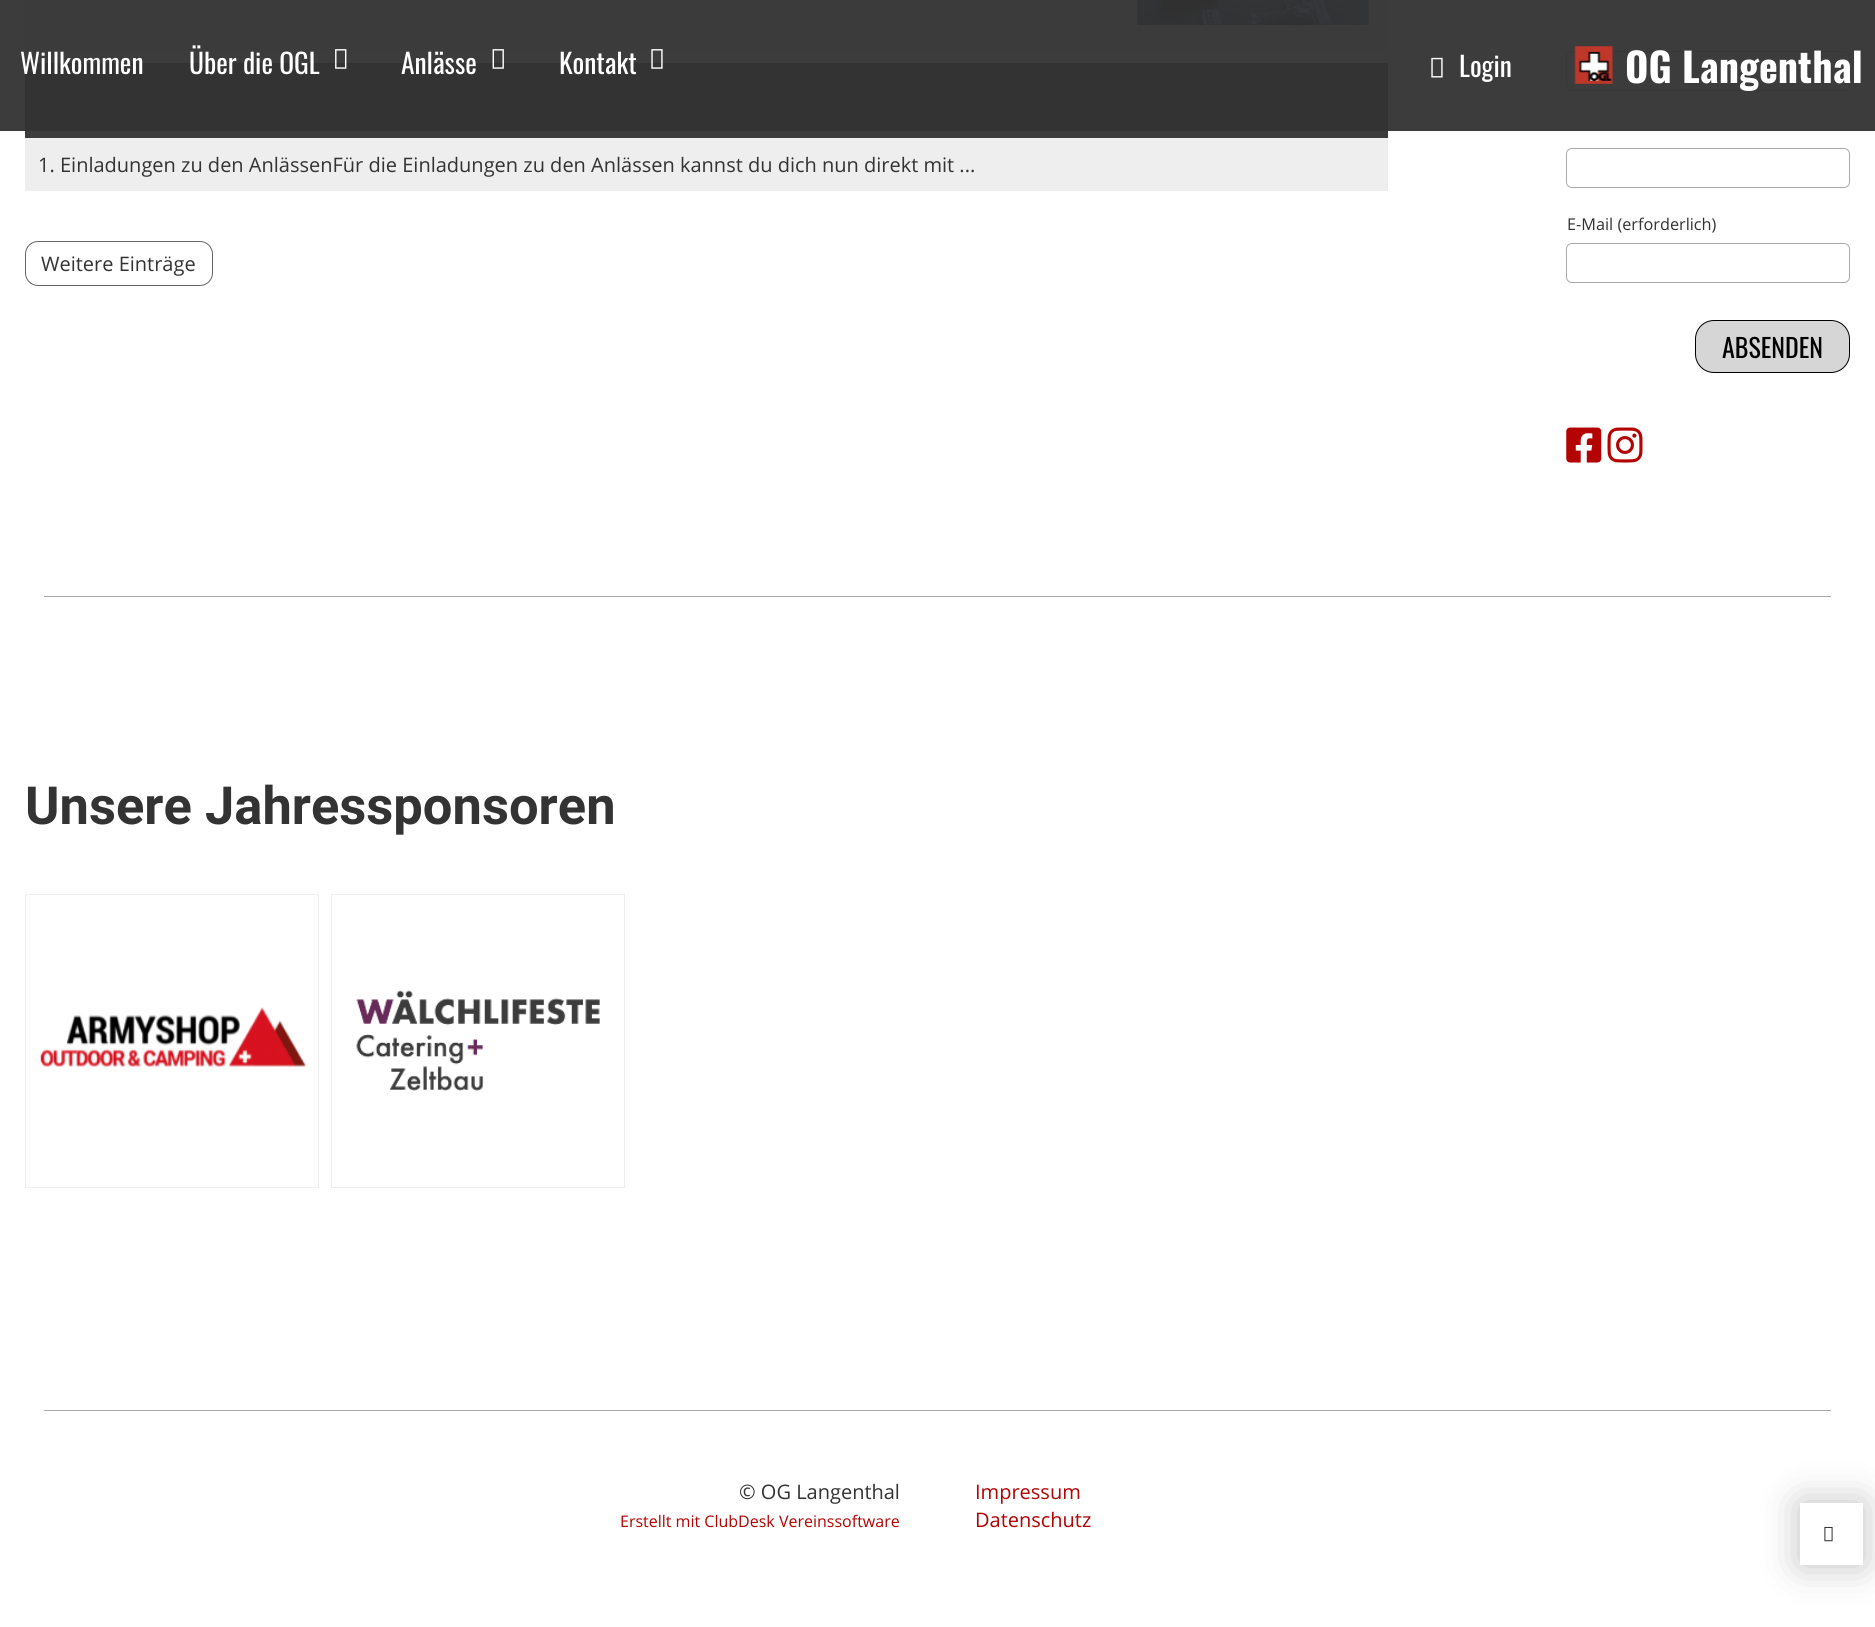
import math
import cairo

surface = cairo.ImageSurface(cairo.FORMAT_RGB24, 1875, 1627)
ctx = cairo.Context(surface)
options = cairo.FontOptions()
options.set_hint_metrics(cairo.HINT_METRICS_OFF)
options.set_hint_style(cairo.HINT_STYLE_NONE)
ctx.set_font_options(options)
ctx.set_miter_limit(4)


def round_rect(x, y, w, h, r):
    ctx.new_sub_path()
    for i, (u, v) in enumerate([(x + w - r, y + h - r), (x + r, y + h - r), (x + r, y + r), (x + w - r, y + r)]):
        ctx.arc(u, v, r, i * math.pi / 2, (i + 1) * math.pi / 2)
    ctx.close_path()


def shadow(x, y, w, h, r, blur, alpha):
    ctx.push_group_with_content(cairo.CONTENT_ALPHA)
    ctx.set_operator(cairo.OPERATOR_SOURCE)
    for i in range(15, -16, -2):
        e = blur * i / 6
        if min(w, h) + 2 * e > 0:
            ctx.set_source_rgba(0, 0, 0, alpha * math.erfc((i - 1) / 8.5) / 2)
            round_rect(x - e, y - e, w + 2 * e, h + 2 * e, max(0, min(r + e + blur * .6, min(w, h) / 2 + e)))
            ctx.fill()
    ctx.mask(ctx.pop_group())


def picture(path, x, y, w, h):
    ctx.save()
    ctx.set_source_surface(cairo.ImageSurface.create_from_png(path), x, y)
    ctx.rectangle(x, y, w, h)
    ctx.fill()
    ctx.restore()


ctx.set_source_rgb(1, 1, 1)
ctx.paint()
ctx.set_source_rgb(0.933, 0.933, 0.933)
ctx.rectangle(25, 0, 1363, 50)
ctx.fill()
picture("img6.png", 1137, 0, 232, 25)
ctx.set_source_rgb(0.235, 0.235, 0.235)
ctx.rectangle(25, 63, 1363, 75)
ctx.fill()
round_rect(1566.5, 51.5, 283, 39, 5.5)
ctx.set_source_rgb(0.667, 0.667, 0.667)
ctx.set_line_width(1)
ctx.stroke()
ctx.set_source_rgba(0.2, 0.2, 0.2, 0.95)
ctx.rectangle(0, 0, 1875, 131)
ctx.fill()
ctx.select_font_face("Oswald")
ctx.set_font_size(27.5)
ctx.set_source_rgb(1, 1, 1)
ctx.move_to(20, 74)
ctx.show_text("Willkommen")
ctx.move_to(189, 74)
ctx.show_text("Über die OGL")
picture("img1.png", 335, 49, 12, 20)
ctx.move_to(401, 74)
ctx.show_text("Anlässe")
picture("img2.png", 492, 49, 12, 20)
ctx.move_to(559, 74)
ctx.show_text("Kontakt")
picture("img3.png", 651, 49, 12, 20)
picture("img4.png", 1431, 57, 12, 21)
ctx.move_to(1459, 77)
ctx.show_text("Login")
picture("img5.png", 1574, 46, 39, 38)
ctx.select_font_face("Oswald", cairo.FONT_SLANT_NORMAL, cairo.FONT_WEIGHT_BOLD)
ctx.set_font_size(40)
ctx.move_to(1625, 83)
ctx.show_text("OG Langenthal")
ctx.set_source_rgb(0.933, 0.933, 0.933)
ctx.rectangle(25, 138, 1363, 53)
ctx.fill()
ctx.select_font_face("Open Sans")
ctx.set_font_size(20)
ctx.set_source_rgb(0.2, 0.2, 0.2)
ctx.move_to(38, 172)
ctx.show_text("1. Einladungen zu den AnlässenFür die Einladungen zu den Anlässen kannst du dich nun direkt mit ...")
round_rect(25.5, 241.5, 187, 44, 12.5)
ctx.set_source_rgb(0.4, 0.4, 0.4)
ctx.stroke()
ctx.set_source_rgb(0.2, 0.2, 0.2)
ctx.move_to(41, 271)
ctx.show_text("Weitere Einträge")
round_rect(1566.5, 148.5, 283, 39, 5.5)
ctx.set_source_rgb(0.667, 0.667, 0.667)
ctx.stroke()
ctx.set_font_size(16.25)
ctx.set_source_rgb(0.2, 0.2, 0.2)
ctx.move_to(1567, 230)
ctx.show_text("E-Mail (erforderlich)")
round_rect(1566.5, 243.5, 283, 39, 5.5)
ctx.set_source_rgb(0.667, 0.667, 0.667)
ctx.stroke()
ctx.set_source_rgb(0.839, 0.839, 0.839)
round_rect(1695.5, 320.5, 154, 52, 18.5)
ctx.fill_preserve()
ctx.set_source_rgb(0, 0, 0)
ctx.stroke()
ctx.select_font_face("Oswald")
ctx.set_font_size(26)
ctx.move_to(1722, 358)
ctx.show_text("ABSENDEN")
picture("img7.png", 1566, 427, 36, 36)
picture("img8.png", 1607, 427, 36, 36)
ctx.set_source_rgb(0.663, 0.663, 0.663)
ctx.rectangle(44, 596, 1787, 1)
ctx.fill()
ctx.select_font_face("Roboto", cairo.FONT_SLANT_NORMAL, cairo.FONT_WEIGHT_BOLD)
ctx.set_font_size(52.5)
ctx.set_source_rgb(0.2, 0.2, 0.2)
ctx.move_to(25, 824)
ctx.show_text("Unsere Jahressponsoren")
ctx.rectangle(25.5, 894.5, 293, 293)
ctx.set_source_rgb(0.933, 0.933, 0.933)
ctx.stroke()
picture("img9.png", 40, 1007, 266, 60)
ctx.rectangle(331.5, 894.5, 293, 293)
ctx.stroke()
picture("img10.png", 356, 990, 244, 101)
ctx.set_source_rgb(0.663, 0.663, 0.663)
ctx.rectangle(44, 1410, 1787, 1)
ctx.fill()
ctx.select_font_face("Open Sans")
ctx.set_font_size(20)
ctx.set_source_rgb(0.2, 0.2, 0.2)
ctx.move_to(739, 1499)
ctx.show_text("© OG Langenthal")
ctx.set_font_size(16)
ctx.set_source_rgb(0.702, 0.012, 0.012)
ctx.move_to(620, 1527)
ctx.show_text("Erstellt mit ClubDesk Vereinssoftware")
ctx.set_font_size(20)
ctx.move_to(975, 1499)
ctx.show_text("Impressum")
ctx.move_to(975, 1527)
ctx.show_text("Datenschutz")
ctx.save()
ctx.set_fill_rule(cairo.FILL_RULE_EVEN_ODD)
ctx.new_path()
ctx.move_to(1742, 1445)
ctx.line_to(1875, 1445)
ctx.line_to(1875, 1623)
ctx.line_to(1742, 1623)
ctx.close_path()
ctx.move_to(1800, 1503)
ctx.line_to(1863, 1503)
ctx.line_to(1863, 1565)
ctx.line_to(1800, 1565)
ctx.close_path()
ctx.clip()
ctx.set_source_rgb(0, 0, 0)
shadow(1800, 1503, 63, 62, 0, 19, 0.25)
ctx.restore()
ctx.set_source_rgba(1, 1, 1, 0.8)
ctx.rectangle(1862, 1503, 1, 62)
ctx.fill()
picture("img11.png", 1824, 1526, 9, 16)
surface.write_to_png("page.png")
